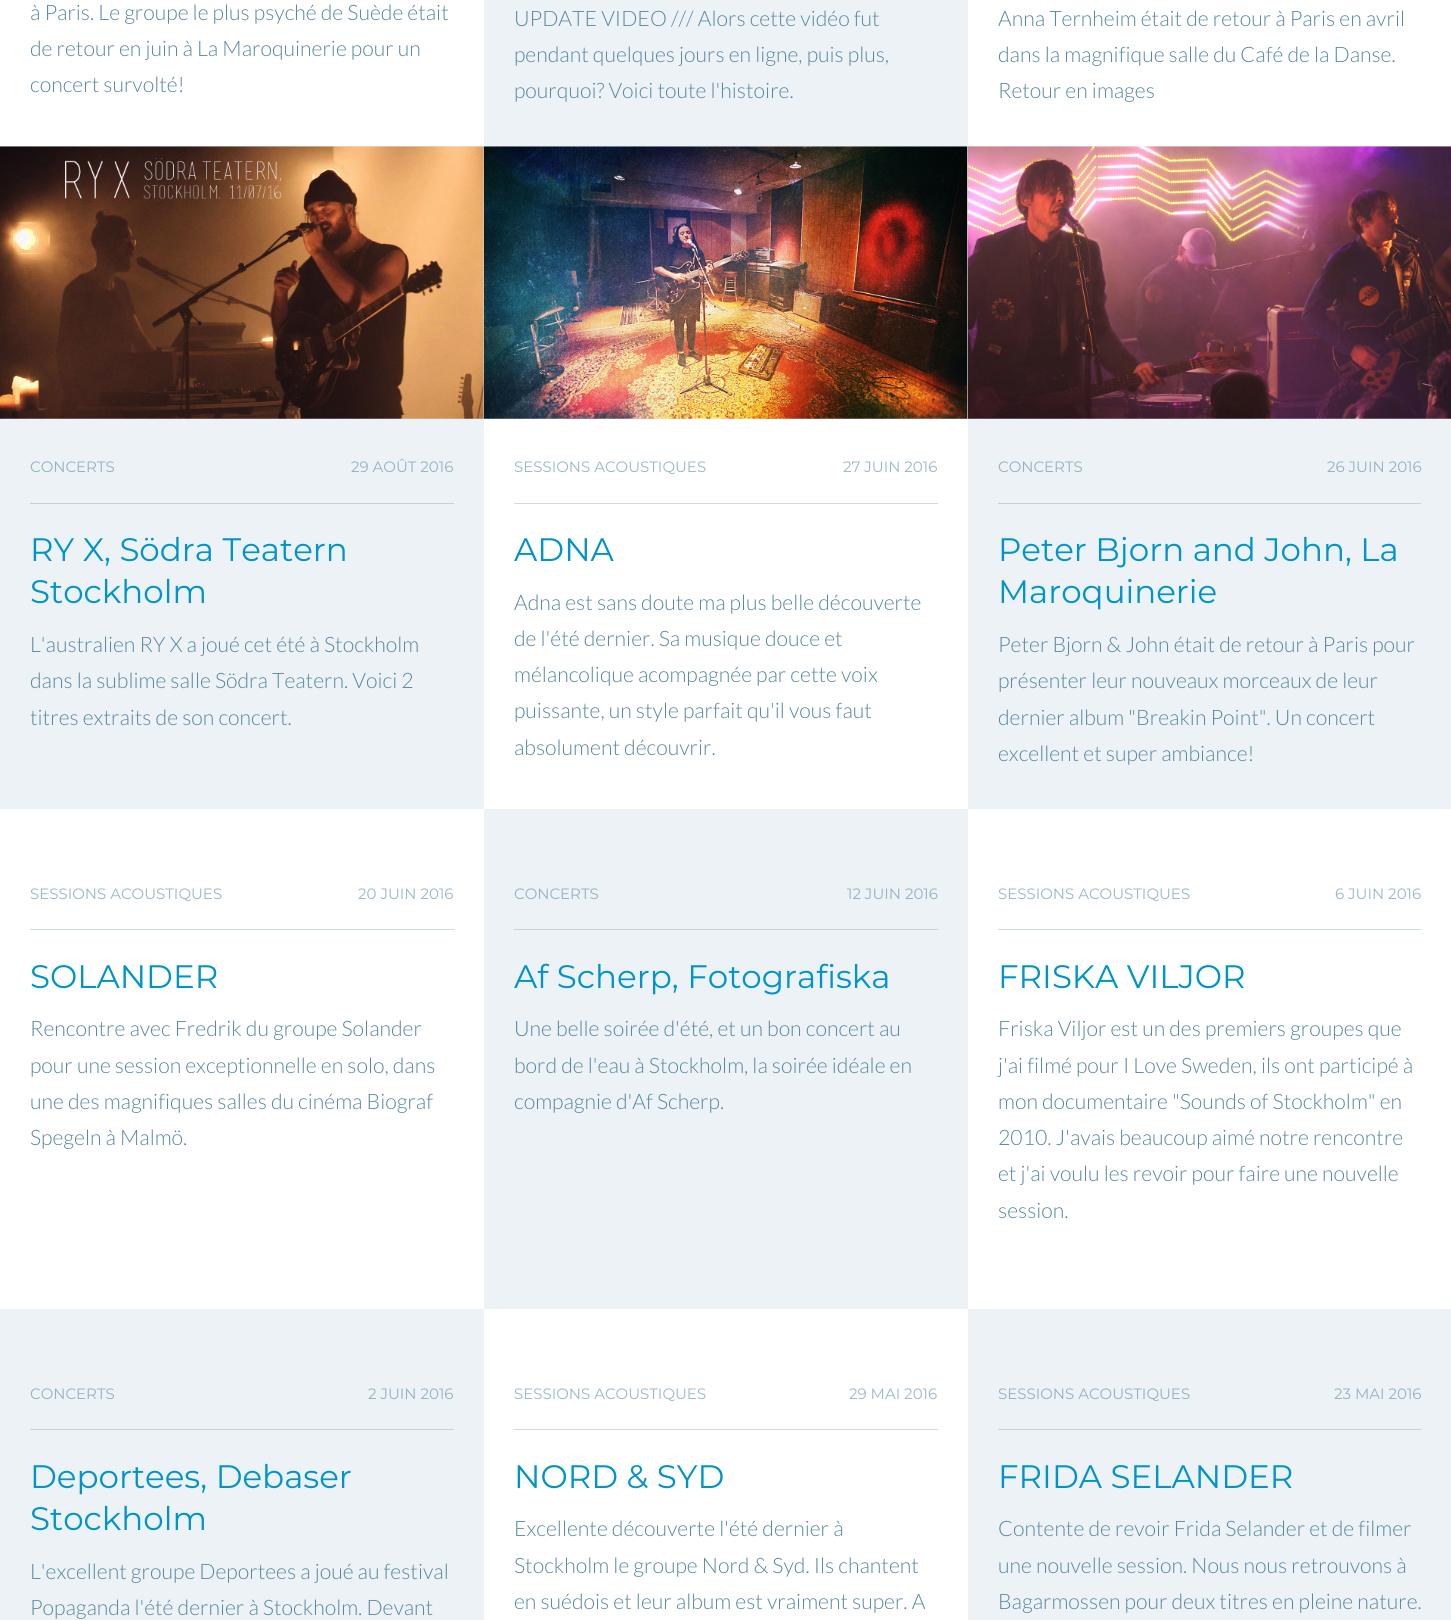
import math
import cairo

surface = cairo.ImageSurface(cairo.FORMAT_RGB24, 1451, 1620)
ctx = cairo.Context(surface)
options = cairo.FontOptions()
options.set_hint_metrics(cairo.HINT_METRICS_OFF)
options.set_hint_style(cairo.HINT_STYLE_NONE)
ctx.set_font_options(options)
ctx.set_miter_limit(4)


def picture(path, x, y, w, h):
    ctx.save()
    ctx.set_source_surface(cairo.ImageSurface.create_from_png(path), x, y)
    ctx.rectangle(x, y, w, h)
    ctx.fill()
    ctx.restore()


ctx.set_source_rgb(1, 1, 1)
ctx.paint()
ctx.select_font_face("Lato Light")
ctx.set_font_size(21.25)
ctx.set_source_rgb(0.349, 0.533, 0.624)
ctx.move_to(30, 20)
ctx.show_text("à Paris. Le groupe le plus psyché de Suède était")
ctx.move_to(30, 56)
ctx.show_text("de retour en juin à La Maroquinerie pour un")
ctx.move_to(30, 92)
ctx.show_text("concert survolté!")
ctx.set_source_rgb(0.929, 0.949, 0.961)
ctx.rectangle(484, 0, 484, 146)
ctx.fill()
ctx.set_source_rgb(0.349, 0.533, 0.624)
ctx.move_to(514, 26)
ctx.show_text("UPDATE VIDEO /// Alors cette vidéo fut")
ctx.move_to(514, 62)
ctx.show_text("pendant quelques jours en ligne, puis plus,")
ctx.move_to(514, 98)
ctx.show_text("pourquoi? Voici toute l'histoire.")
ctx.move_to(998, 26)
ctx.show_text("Anna Ternheim était de retour à Paris en avril")
ctx.move_to(998, 62)
ctx.show_text("dans la magnifique salle du Café de la Danse.")
ctx.move_to(998, 98)
ctx.show_text("Retour en images")
ctx.set_source_rgb(0.929, 0.949, 0.961)
ctx.rectangle(0, 146, 484, 663)
ctx.fill()
picture("img1.png", 0, 146, 484, 273)
ctx.set_source_rgb(0.757, 0.824, 0.859)
ctx.rectangle(30, 503, 424, 1)
ctx.fill()
ctx.select_font_face("Montserrat")
ctx.set_font_size(15)
ctx.set_source_rgb(0.58, 0.698, 0.757)
ctx.move_to(30, 472)
ctx.show_text("CONCERTS")
ctx.move_to(351, 472)
ctx.show_text("29 AOÛT 2016")
ctx.set_font_size(32.5)
ctx.set_source_rgb(0, 0.58, 0.792)
ctx.move_to(30, 561)
ctx.show_text("RY X, Södra Teatern")
ctx.move_to(30, 603)
ctx.show_text("Stockholm")
ctx.select_font_face("Lato Light")
ctx.set_font_size(21.25)
ctx.set_source_rgb(0.349, 0.533, 0.624)
ctx.move_to(30, 652)
ctx.show_text("L'australien RY X a joué cet été à Stockholm")
ctx.move_to(30, 688)
ctx.show_text("dans la sublime salle Södra Teatern. Voici 2")
ctx.move_to(30, 725)
ctx.show_text("titres extraits de son concert.")
picture("img2.png", 483, 146, 485, 273)
ctx.set_source_rgb(0.804, 0.859, 0.886)
ctx.rectangle(514, 503, 424, 1)
ctx.fill()
ctx.select_font_face("Montserrat")
ctx.set_font_size(15)
ctx.set_source_rgb(0.608, 0.722, 0.773)
ctx.move_to(514, 472)
ctx.show_text("SESSIONS ACOUSTIQUES")
ctx.move_to(843, 472)
ctx.show_text("27 JUIN 2016")
ctx.set_font_size(32.5)
ctx.set_source_rgb(0, 0.58, 0.792)
ctx.move_to(514, 561)
ctx.show_text("ADNA")
ctx.select_font_face("Lato Light")
ctx.set_font_size(21.25)
ctx.set_source_rgb(0.349, 0.533, 0.624)
ctx.move_to(514, 610)
ctx.show_text("Adna est sans doute ma plus belle découverte")
ctx.move_to(514, 646)
ctx.show_text("de l'été dernier. Sa musique douce et")
ctx.move_to(514, 682)
ctx.show_text("mélancolique acompagnée par cette voix")
ctx.move_to(514, 718)
ctx.show_text("puissante, un style parfait qu'il vous faut")
ctx.move_to(514, 755)
ctx.show_text("absolument découvrir.")
ctx.set_source_rgb(0.929, 0.949, 0.961)
ctx.rectangle(968, 146, 483, 663)
ctx.fill()
picture("img3.png", 967, 146, 484, 273)
ctx.set_source_rgb(0.757, 0.824, 0.859)
ctx.rectangle(998, 503, 423, 1)
ctx.fill()
ctx.select_font_face("Montserrat")
ctx.set_font_size(15)
ctx.set_source_rgb(0.58, 0.698, 0.757)
ctx.move_to(998, 472)
ctx.show_text("CONCERTS")
ctx.move_to(1327, 472)
ctx.show_text("26 JUIN 2016")
ctx.set_font_size(32.5)
ctx.set_source_rgb(0, 0.58, 0.792)
ctx.move_to(998, 561)
ctx.show_text("Peter Bjorn and John, La")
ctx.move_to(998, 603)
ctx.show_text("Maroquinerie")
ctx.select_font_face("Lato Light")
ctx.set_font_size(21.25)
ctx.set_source_rgb(0.349, 0.533, 0.624)
ctx.move_to(998, 652)
ctx.show_text("Peter Bjorn & John était de retour à Paris pour")
ctx.move_to(998, 688)
ctx.show_text("présenter leur nouveaux morceaux de leur")
ctx.move_to(998, 725)
ctx.show_text("dernier album \"Breakin Point\". Un concert")
ctx.move_to(998, 761)
ctx.show_text("excellent et super ambiance!")
ctx.set_source_rgb(0.804, 0.859, 0.886)
ctx.rectangle(30, 929, 424, 1)
ctx.fill()
ctx.select_font_face("Montserrat")
ctx.set_font_size(15)
ctx.set_source_rgb(0.608, 0.722, 0.773)
ctx.move_to(30, 899)
ctx.show_text("SESSIONS ACOUSTIQUES")
ctx.move_to(358, 899)
ctx.show_text("20 JUIN 2016")
ctx.set_font_size(32.5)
ctx.set_source_rgb(0, 0.58, 0.792)
ctx.move_to(30, 988)
ctx.show_text("SOLANDER")
ctx.select_font_face("Lato Light")
ctx.set_font_size(21.25)
ctx.set_source_rgb(0.349, 0.533, 0.624)
ctx.move_to(30, 1036)
ctx.show_text("Rencontre avec Fredrik du groupe Solander")
ctx.move_to(30, 1073)
ctx.show_text("pour une session exceptionnelle en solo, dans")
ctx.move_to(30, 1109)
ctx.show_text("une des magnifiques salles du cinéma Biograf")
ctx.move_to(30, 1145)
ctx.show_text("Spegeln à Malmö.")
ctx.set_source_rgb(0.929, 0.949, 0.961)
ctx.rectangle(484, 809, 484, 500)
ctx.fill()
ctx.set_source_rgb(0.757, 0.824, 0.859)
ctx.rectangle(514, 929, 424, 1)
ctx.fill()
ctx.select_font_face("Montserrat")
ctx.set_font_size(15)
ctx.set_source_rgb(0.58, 0.698, 0.757)
ctx.move_to(514, 899)
ctx.show_text("CONCERTS")
ctx.move_to(847, 899)
ctx.show_text("12 JUIN 2016")
ctx.set_font_size(32.5)
ctx.set_source_rgb(0, 0.58, 0.792)
ctx.move_to(514, 988)
ctx.show_text("Af Scherp, Fotografiska")
ctx.select_font_face("Lato Light")
ctx.set_font_size(21.25)
ctx.set_source_rgb(0.349, 0.533, 0.624)
ctx.move_to(514, 1036)
ctx.show_text("Une belle soirée d'été, et un bon concert au")
ctx.move_to(514, 1073)
ctx.show_text("bord de l'eau à Stockholm, la soirée idéale en")
ctx.move_to(514, 1109)
ctx.show_text("compagnie d'Af Scherp.")
ctx.set_source_rgb(0.804, 0.859, 0.886)
ctx.rectangle(998, 929, 423, 1)
ctx.fill()
ctx.select_font_face("Montserrat")
ctx.set_font_size(15)
ctx.set_source_rgb(0.608, 0.722, 0.773)
ctx.move_to(998, 899)
ctx.show_text("SESSIONS ACOUSTIQUES")
ctx.move_to(1335, 899)
ctx.show_text("6 JUIN 2016")
ctx.set_font_size(32.5)
ctx.set_source_rgb(0, 0.58, 0.792)
ctx.move_to(998, 988)
ctx.show_text("FRISKA VILJOR")
ctx.select_font_face("Lato Light")
ctx.set_font_size(21.25)
ctx.set_source_rgb(0.349, 0.533, 0.624)
ctx.move_to(998, 1036)
ctx.show_text("Friska Viljor est un des premiers groupes que")
ctx.move_to(998, 1073)
ctx.show_text("j'ai filmé pour I Love Sweden, ils ont participé à")
ctx.move_to(998, 1109)
ctx.show_text("mon documentaire \"Sounds of Stockholm\" en")
ctx.move_to(998, 1145)
ctx.show_text("2010. J'avais beaucoup aimé notre rencontre")
ctx.move_to(998, 1181)
ctx.show_text("et j'ai voulu les revoir pour faire une nouvelle")
ctx.move_to(998, 1218)
ctx.show_text("session.")
ctx.set_source_rgb(0.929, 0.949, 0.961)
ctx.rectangle(0, 1309, 484, 311)
ctx.fill()
ctx.set_source_rgb(0.757, 0.824, 0.859)
ctx.rectangle(30, 1429, 424, 1)
ctx.fill()
ctx.select_font_face("Montserrat")
ctx.set_font_size(15)
ctx.set_source_rgb(0.58, 0.698, 0.757)
ctx.move_to(30, 1399)
ctx.show_text("CONCERTS")
ctx.move_to(368, 1399)
ctx.show_text("2 JUIN 2016")
ctx.set_font_size(32.5)
ctx.set_source_rgb(0, 0.58, 0.792)
ctx.move_to(30, 1488)
ctx.show_text("Deportees, Debaser")
ctx.move_to(30, 1530)
ctx.show_text("Stockholm")
ctx.select_font_face("Lato Light")
ctx.set_font_size(21.25)
ctx.set_source_rgb(0.349, 0.533, 0.624)
ctx.move_to(30, 1579)
ctx.show_text("L'excellent groupe Deportees a joué au festival")
ctx.move_to(30, 1615)
ctx.show_text("Popaganda l'été dernier à Stockholm. Devant")
ctx.set_source_rgb(0.804, 0.859, 0.886)
ctx.rectangle(514, 1429, 424, 1)
ctx.fill()
ctx.select_font_face("Montserrat")
ctx.set_font_size(15)
ctx.set_source_rgb(0.608, 0.722, 0.773)
ctx.move_to(514, 1399)
ctx.show_text("SESSIONS ACOUSTIQUES")
ctx.move_to(849, 1399)
ctx.show_text("29 MAI 2016")
ctx.set_font_size(32.5)
ctx.set_source_rgb(0, 0.58, 0.792)
ctx.move_to(514, 1488)
ctx.show_text("NORD & SYD")
ctx.select_font_face("Lato Light")
ctx.set_font_size(21.25)
ctx.set_source_rgb(0.349, 0.533, 0.624)
ctx.move_to(514, 1536)
ctx.show_text("Excellente découverte l'été dernier à")
ctx.move_to(514, 1573)
ctx.show_text("Stockholm le groupe Nord & Syd. Ils chantent")
ctx.move_to(514, 1609)
ctx.show_text("en suédois et leur album est vraiment super. A")
ctx.set_source_rgb(0.929, 0.949, 0.961)
ctx.rectangle(968, 1309, 483, 311)
ctx.fill()
ctx.set_source_rgb(0.757, 0.824, 0.859)
ctx.rectangle(998, 1429, 423, 1)
ctx.fill()
ctx.select_font_face("Montserrat")
ctx.set_font_size(15)
ctx.set_source_rgb(0.58, 0.698, 0.757)
ctx.move_to(998, 1399)
ctx.show_text("SESSIONS ACOUSTIQUES")
ctx.move_to(1334, 1399)
ctx.show_text("23 MAI 2016")
ctx.set_font_size(32.5)
ctx.set_source_rgb(0, 0.58, 0.792)
ctx.move_to(998, 1488)
ctx.show_text("FRIDA SELANDER")
ctx.select_font_face("Lato Light")
ctx.set_font_size(21.25)
ctx.set_source_rgb(0.349, 0.533, 0.624)
ctx.move_to(998, 1536)
ctx.show_text("Contente de revoir Frida Selander et de filmer")
ctx.move_to(998, 1573)
ctx.show_text("une nouvelle session. Nous nous retrouvons à")
ctx.move_to(998, 1609)
ctx.show_text("Bagarmossen pour deux titres en pleine nature.")
surface.write_to_png("page.png")
